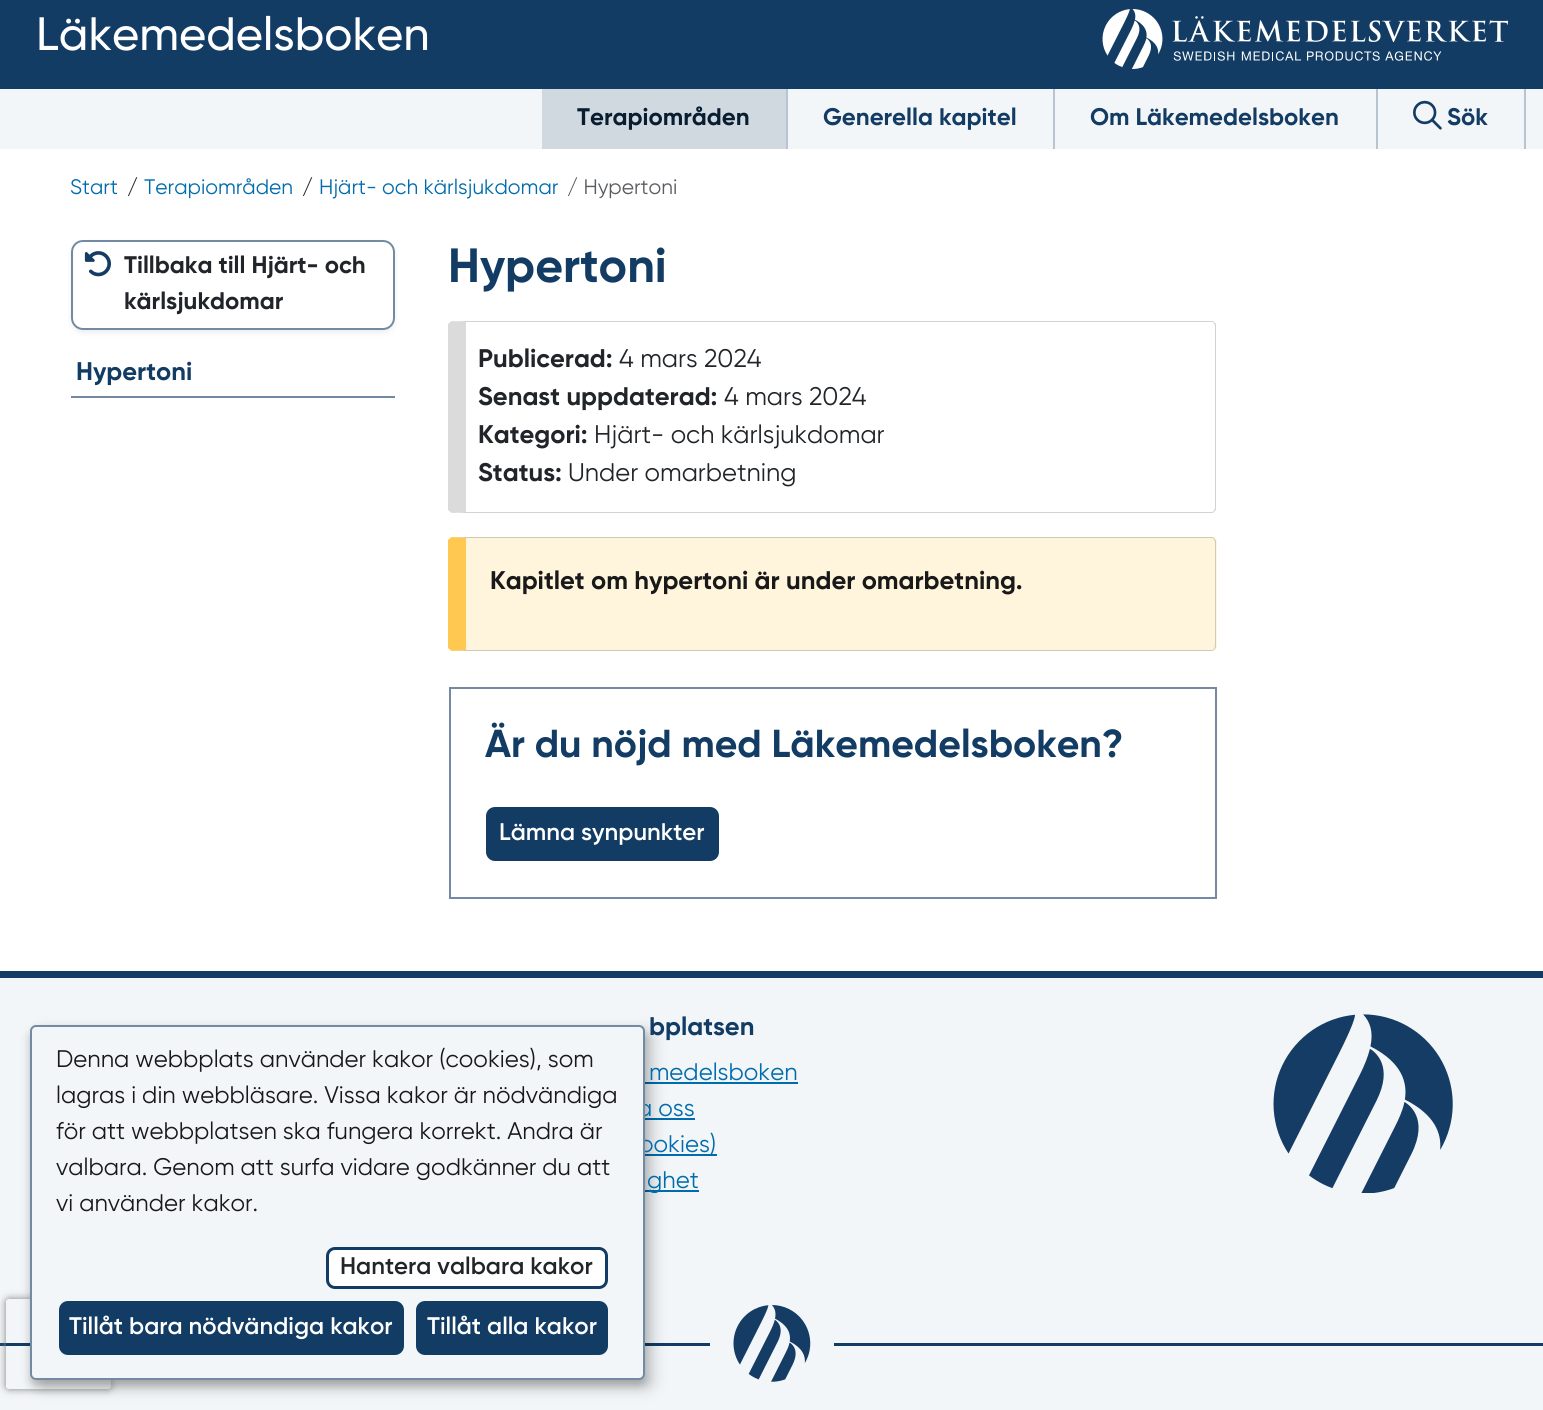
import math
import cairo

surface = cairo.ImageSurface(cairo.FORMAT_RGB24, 1543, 1410)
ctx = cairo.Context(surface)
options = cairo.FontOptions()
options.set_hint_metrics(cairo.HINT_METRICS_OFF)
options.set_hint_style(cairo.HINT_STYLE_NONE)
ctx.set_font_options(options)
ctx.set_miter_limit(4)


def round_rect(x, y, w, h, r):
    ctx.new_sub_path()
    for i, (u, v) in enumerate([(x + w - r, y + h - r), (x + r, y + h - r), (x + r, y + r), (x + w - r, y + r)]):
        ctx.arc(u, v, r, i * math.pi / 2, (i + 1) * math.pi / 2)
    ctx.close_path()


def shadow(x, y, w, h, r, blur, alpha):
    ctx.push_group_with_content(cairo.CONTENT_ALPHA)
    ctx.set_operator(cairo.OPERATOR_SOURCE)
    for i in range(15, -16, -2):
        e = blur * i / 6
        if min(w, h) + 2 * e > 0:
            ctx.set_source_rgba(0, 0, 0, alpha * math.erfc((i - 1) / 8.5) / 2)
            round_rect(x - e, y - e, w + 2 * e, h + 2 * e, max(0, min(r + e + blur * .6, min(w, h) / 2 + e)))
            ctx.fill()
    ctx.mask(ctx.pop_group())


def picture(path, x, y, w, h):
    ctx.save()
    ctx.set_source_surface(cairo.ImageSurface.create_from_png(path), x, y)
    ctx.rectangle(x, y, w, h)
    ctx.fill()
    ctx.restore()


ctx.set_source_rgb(1, 1, 1)
ctx.paint()
ctx.set_source_rgb(0.078, 0.235, 0.392)
ctx.rectangle(0, 0, 1543, 89)
ctx.fill()
ctx.select_font_face("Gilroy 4")
ctx.set_font_size(46.75)
ctx.set_source_rgb(1, 1, 1)
ctx.move_to(36, 50)
ctx.show_text("Läkemedelsboken")
picture("img1.png", 1102, 9, 406, 60)
ctx.set_source_rgb(0.953, 0.961, 0.969)
ctx.rectangle(0, 89, 1543, 60)
ctx.fill()
ctx.set_source_rgb(0.722, 0.769, 0.816)
ctx.rectangle(786, 89, 2, 60)
ctx.fill()
ctx.set_source_rgb(0.816, 0.847, 0.878)
ctx.rectangle(542, 89, 244, 60)
ctx.fill()
ctx.select_font_face("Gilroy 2")
ctx.set_font_size(24)
ctx.set_source_rgb(0.039, 0.114, 0.192)
ctx.move_to(577, 125)
ctx.show_text("Terapiområden")
ctx.set_source_rgb(0.722, 0.769, 0.816)
ctx.rectangle(1053, 89, 2, 60)
ctx.fill()
ctx.set_source_rgb(0.078, 0.235, 0.392)
ctx.move_to(823, 125)
ctx.show_text("Generella kapitel")
ctx.set_source_rgb(0.722, 0.769, 0.816)
ctx.rectangle(1376, 89, 2, 60)
ctx.fill()
ctx.set_source_rgb(0.078, 0.235, 0.392)
ctx.move_to(1090, 125)
ctx.show_text("Om Läkemedelsboken")
ctx.set_source_rgb(0.722, 0.769, 0.816)
ctx.rectangle(1524, 89, 2, 60)
ctx.fill()
picture("img2.png", 1413, 100, 29, 30)
ctx.set_source_rgb(0.078, 0.235, 0.392)
ctx.move_to(1447, 125)
ctx.show_text("Sök")
ctx.set_source_rgb(0.953, 0.961, 0.969)
ctx.rectangle(0, 978, 1543, 432)
ctx.fill()
ctx.set_source_rgb(0, 0.42, 0.678)
ctx.rectangle(645, 1082, 153, 2)
ctx.fill()
ctx.rectangle(645, 1118, 50, 2)
ctx.fill()
ctx.rectangle(645, 1154, 72, 2)
ctx.fill()
ctx.rectangle(645, 1190, 54, 2)
ctx.fill()
ctx.set_source_rgb(0.078, 0.235, 0.392)
ctx.rectangle(0, 1343, 1543, 3)
ctx.fill()
ctx.set_source_rgb(0, 0, 0)
shadow(38, 1032, 615, 356, 6, 7.5, 0.19)
shadow(30, 1031, 615, 355, 6, 4.5, 0.2)
ctx.select_font_face("Gilroy")
ctx.set_source_rgb(0, 0.42, 0.678)
ctx.move_to(637, 1116)
ctx.show_text("a oss")
ctx.move_to(639, 1152)
ctx.show_text("ookies)")
ctx.save()
ctx.set_fill_rule(cairo.FILL_RULE_EVEN_ODD)
ctx.new_path()
ctx.move_to(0, 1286)
ctx.line_to(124, 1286)
ctx.line_to(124, 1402)
ctx.line_to(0, 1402)
ctx.close_path()
ctx.move_to(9, 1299)
ctx.line_to(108, 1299)
ctx.curve_to(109.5, 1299, 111, 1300.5, 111, 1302)
ctx.line_to(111, 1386)
ctx.curve_to(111, 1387.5, 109.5, 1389, 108, 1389)
ctx.line_to(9, 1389)
ctx.curve_to(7.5, 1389, 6, 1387.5, 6, 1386)
ctx.line_to(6, 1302)
ctx.curve_to(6, 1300.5, 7.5, 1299, 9, 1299)
ctx.close_path()
ctx.clip()
ctx.set_source_rgb(0.502, 0.502, 0.502)
shadow(6, 1299, 105, 90, 3, 4, 1)
ctx.restore()
ctx.set_source_rgb(0.953, 0.961, 0.969)
round_rect(31, 1026, 613, 353, 5)
ctx.fill_preserve()
ctx.set_source_rgb(0.447, 0.541, 0.635)
ctx.stroke()
ctx.set_source_rgb(0.098, 0.098, 0.098)
ctx.move_to(56, 1067)
ctx.show_text("Denna webbplats använder kakor (cookies), som")
ctx.move_to(56, 1103)
ctx.show_text("lagras i din webbläsare. Vissa kakor är nödvändiga")
ctx.move_to(56, 1139)
ctx.show_text("för att webbplatsen ska fungera korrekt. Andra är")
ctx.move_to(56, 1175)
ctx.show_text("valbara. Genom att surfa vidare godkänner du att")
ctx.move_to(56, 1211)
ctx.show_text("vi använder kakor.")
ctx.set_source_rgb(1, 1, 1)
round_rect(327.5, 1248.5, 279, 39, 7.5)
ctx.fill_preserve()
ctx.set_source_rgb(0.078, 0.235, 0.392)
ctx.set_line_width(3)
ctx.stroke()
ctx.select_font_face("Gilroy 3")
ctx.set_source_rgb(0.129, 0.145, 0.161)
ctx.move_to(340, 1274)
ctx.show_text("Hantera valbara kakor")
ctx.set_source_rgb(0.078, 0.235, 0.392)
round_rect(60, 1302, 343, 52, 8)
ctx.fill_preserve()
ctx.set_line_width(2)
ctx.stroke()
ctx.set_source_rgb(1, 1, 1)
ctx.move_to(69, 1334)
ctx.show_text("Tillåt bara nödvändiga kakor")
ctx.set_source_rgb(0.078, 0.235, 0.392)
round_rect(417, 1302, 190, 52, 8)
ctx.fill_preserve()
ctx.stroke()
ctx.set_source_rgb(1, 1, 1)
ctx.move_to(427, 1334)
ctx.show_text("Tillåt alla kakor")
ctx.select_font_face("Gilroy")
ctx.set_font_size(21)
ctx.set_source_rgb(0, 0.42, 0.678)
ctx.move_to(70, 194)
ctx.show_text("Start")
ctx.set_source_rgb(0.129, 0.145, 0.161)
ctx.move_to(127, 194)
ctx.show_text("/")
ctx.set_source_rgb(0, 0.42, 0.678)
ctx.move_to(144, 194)
ctx.show_text("Terapiområden")
ctx.set_source_rgb(0.129, 0.145, 0.161)
ctx.move_to(302, 194)
ctx.show_text("/")
ctx.set_source_rgb(0, 0.42, 0.678)
ctx.move_to(319, 194)
ctx.show_text("Hjärt- och kärlsjukdomar")
ctx.set_source_rgb(0.349, 0.361, 0.373)
ctx.move_to(567, 194)
ctx.show_text("/ Hypertoni")
ctx.save()
ctx.set_fill_rule(cairo.FILL_RULE_EVEN_ODD)
ctx.new_path()
ctx.move_to(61, 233)
ctx.line_to(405, 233)
ctx.line_to(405, 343)
ctx.line_to(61, 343)
ctx.close_path()
ctx.move_to(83, 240)
ctx.line_to(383, 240)
ctx.curve_to(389.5, 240, 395, 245.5, 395, 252)
ctx.line_to(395, 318)
ctx.curve_to(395, 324.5, 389.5, 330, 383, 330)
ctx.line_to(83, 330)
ctx.curve_to(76.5, 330, 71, 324.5, 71, 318)
ctx.line_to(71, 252)
ctx.curve_to(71, 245.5, 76.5, 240, 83, 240)
ctx.close_path()
ctx.clip()
ctx.set_source_rgb(0, 0, 0)
shadow(71, 243, 324, 90, 12, 3, 0.07)
ctx.restore()
round_rect(72, 241, 322, 88, 11)
ctx.set_source_rgb(0.447, 0.541, 0.635)
ctx.stroke()
picture("img3.png", 84, 251, 27, 26)
ctx.select_font_face("Gilroy 2")
ctx.set_font_size(24)
ctx.set_source_rgb(0.129, 0.145, 0.161)
ctx.move_to(124, 273)
ctx.show_text("Tillbaka till Hjärt- och")
ctx.move_to(124, 309)
ctx.show_text("kärlsjukdomar")
ctx.set_source_rgb(0.447, 0.541, 0.635)
ctx.rectangle(71, 396, 324, 2)
ctx.fill()
ctx.set_font_size(25.5)
ctx.set_source_rgb(0.078, 0.235, 0.392)
ctx.move_to(76, 380)
ctx.show_text("Hypertoni")
ctx.set_font_size(48)
ctx.move_to(448, 282)
ctx.show_text("Hypertoni")
ctx.set_source_rgb(0.824, 0.824, 0.824)
ctx.new_path()
ctx.move_to(453, 321)
ctx.line_to(452, 321)
ctx.line_to(466, 322)
ctx.line_to(1212, 322)
ctx.line_to(1214, 323)
ctx.line_to(1215, 323)
ctx.curve_to(1214, 322, 1213, 321, 1212, 321)
ctx.close_path()
ctx.fill()
ctx.new_path()
ctx.move_to(1215, 323)
ctx.curve_to(1216, 323, 1216, 325, 1216, 326)
ctx.line_to(1216, 508)
ctx.curve_to(1216, 509, 1216, 511, 1215, 511)
ctx.line_to(1214, 511)
ctx.line_to(1215, 508)
ctx.line_to(1215, 326)
ctx.line_to(1214, 323)
ctx.close_path()
ctx.fill()
ctx.new_path()
ctx.move_to(453, 513)
ctx.line_to(1212, 513)
ctx.curve_to(1213, 513, 1214, 512, 1215, 511)
ctx.line_to(1214, 511)
ctx.line_to(1212, 512)
ctx.line_to(466, 512)
ctx.line_to(452, 513)
ctx.close_path()
ctx.fill()
ctx.set_source_rgb(0.859, 0.859, 0.859)
ctx.new_path()
ctx.move_to(448, 324)
ctx.curve_to(449, 323, 450, 322, 452, 321)
ctx.line_to(466, 322)
ctx.line_to(466, 512)
ctx.line_to(452, 513)
ctx.curve_to(450, 512, 449, 511, 448, 510)
ctx.close_path()
ctx.fill()
ctx.set_font_size(25.5)
ctx.set_source_rgb(0.129, 0.145, 0.161)
ctx.move_to(478, 367)
ctx.show_text("Publicerad:")
ctx.select_font_face("Gilroy")
ctx.move_to(619, 367)
ctx.show_text("4 mars 2024")
ctx.select_font_face("Gilroy 2")
ctx.move_to(478, 405)
ctx.show_text("Senast uppdaterad:")
ctx.select_font_face("Gilroy")
ctx.move_to(724, 405)
ctx.show_text("4 mars 2024")
ctx.select_font_face("Gilroy 2")
ctx.move_to(478, 443)
ctx.show_text("Kategori:")
ctx.select_font_face("Gilroy")
ctx.move_to(594, 443)
ctx.show_text("Hjärt- och kärlsjukdomar")
ctx.select_font_face("Gilroy 2")
ctx.move_to(478, 481)
ctx.show_text("Status:")
ctx.select_font_face("Gilroy")
ctx.move_to(568, 481)
ctx.show_text("Under omarbetning")
ctx.set_source_rgb(1, 0.957, 0.863)
round_rect(449, 537, 768, 114, 5)
ctx.fill()
ctx.set_source_rgb(0.824, 0.788, 0.71)
ctx.new_path()
ctx.move_to(453, 537)
ctx.line_to(452, 537)
ctx.line_to(466, 538)
ctx.line_to(1212, 538)
ctx.line_to(1214, 539)
ctx.line_to(1215, 539)
ctx.curve_to(1214, 538, 1213, 537, 1212, 537)
ctx.close_path()
ctx.fill()
ctx.new_path()
ctx.move_to(1215, 539)
ctx.line_to(1216, 541)
ctx.line_to(1216, 647)
ctx.line_to(1215, 649)
ctx.line_to(1214, 649)
ctx.line_to(1215, 646)
ctx.line_to(1215, 542)
ctx.line_to(1214, 539)
ctx.close_path()
ctx.fill()
ctx.new_path()
ctx.move_to(453, 651)
ctx.line_to(1212, 651)
ctx.curve_to(1213, 651, 1214, 650, 1215, 649)
ctx.line_to(1214, 649)
ctx.line_to(1212, 650)
ctx.line_to(466, 650)
ctx.line_to(452, 651)
ctx.close_path()
ctx.fill()
ctx.set_source_rgb(1, 0.784, 0.314)
ctx.new_path()
ctx.move_to(448, 540)
ctx.curve_to(449, 539, 450, 538, 452, 537)
ctx.line_to(466, 538)
ctx.line_to(466, 650)
ctx.line_to(452, 651)
ctx.curve_to(450, 650, 449, 649, 448, 648)
ctx.close_path()
ctx.fill()
ctx.select_font_face("Gilroy 2")
ctx.set_source_rgb(0.098, 0.098, 0.098)
ctx.move_to(490, 589)
ctx.show_text("Kapitlet om hypertoni är under omarbetning.")
ctx.rectangle(450, 688, 766, 210)
ctx.set_source_rgb(0.447, 0.541, 0.635)
ctx.stroke()
ctx.set_font_size(39)
ctx.set_source_rgb(0.078, 0.235, 0.392)
ctx.move_to(485, 757)
ctx.show_text("Är du nöjd med Läkemedelsboken?")
round_rect(487, 808, 231, 52, 8)
ctx.fill_preserve()
ctx.stroke()
ctx.select_font_face("Gilroy 3")
ctx.set_font_size(24)
ctx.set_source_rgb(1, 1, 1)
ctx.move_to(499, 840)
ctx.show_text("Lämna synpunkter")
ctx.set_source_rgb(0.078, 0.235, 0.392)
ctx.rectangle(0, 971, 1543, 7)
ctx.fill()
ctx.select_font_face("Gilroy 2")
ctx.set_font_size(25.5)
ctx.move_to(649, 1035)
ctx.show_text("bplatsen")
ctx.select_font_face("Gilroy")
ctx.set_font_size(24)
ctx.set_source_rgb(0, 0.42, 0.678)
ctx.move_to(649, 1080)
ctx.show_text("medelsboken")
ctx.move_to(647, 1188)
ctx.show_text("ghet")
picture("img4.png", 1273, 1014, 180, 179)
ctx.set_source_rgb(0.953, 0.961, 0.969)
ctx.rectangle(710, 1343, 124, 3)
ctx.fill()
picture("img5.png", 733, 1305, 78, 77)
surface.write_to_png("page.png")
